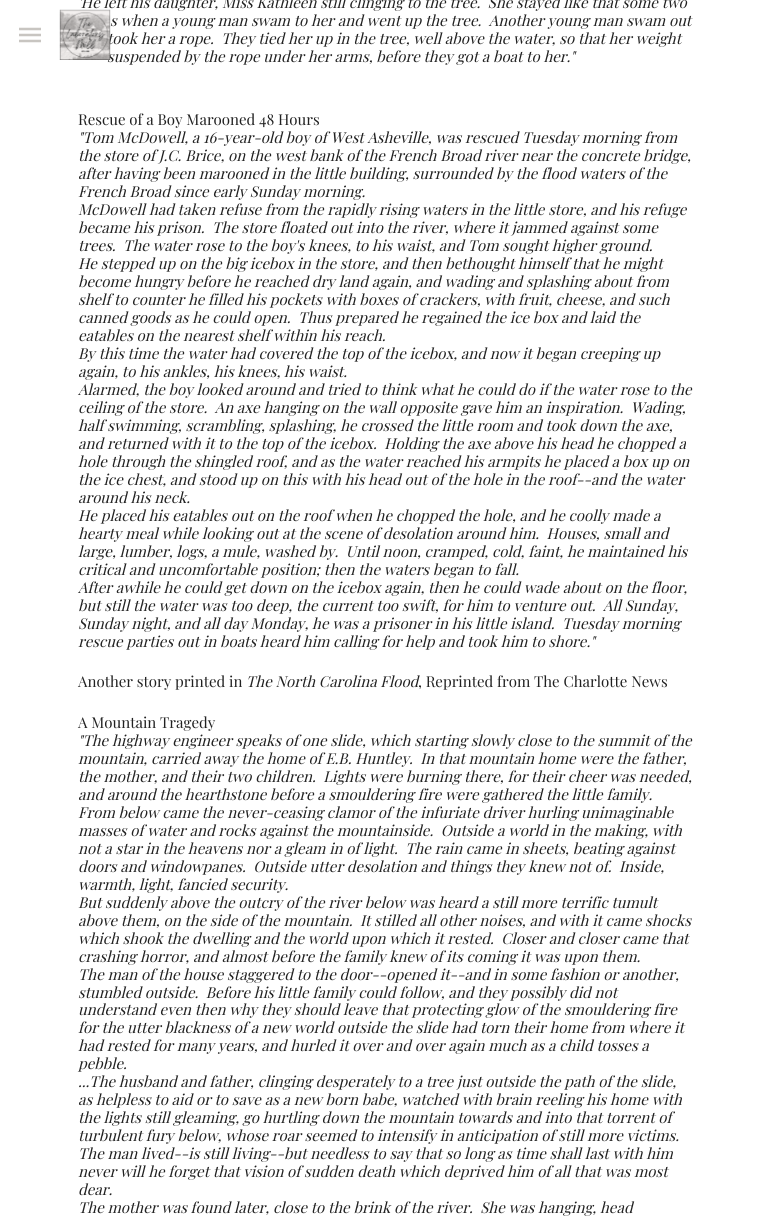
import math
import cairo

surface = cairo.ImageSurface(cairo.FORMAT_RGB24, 770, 1227)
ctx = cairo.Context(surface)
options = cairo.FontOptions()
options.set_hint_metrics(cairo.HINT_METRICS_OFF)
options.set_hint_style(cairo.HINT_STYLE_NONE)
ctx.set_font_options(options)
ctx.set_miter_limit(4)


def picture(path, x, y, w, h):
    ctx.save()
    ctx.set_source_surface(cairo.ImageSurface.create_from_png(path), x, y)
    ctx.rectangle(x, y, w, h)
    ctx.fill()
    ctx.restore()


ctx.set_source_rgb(1, 1, 1)
ctx.paint()
ctx.new_path()
ctx.move_to(19, 29)
ctx.line_to(41, 29)
ctx.move_to(19, 35)
ctx.line_to(41, 35)
ctx.move_to(19, 41)
ctx.line_to(41, 41)
ctx.set_source_rgb(0.784, 0.773, 0.757)
ctx.set_line_width(2.5)
ctx.stroke()
ctx.select_font_face("Playfair Display", cairo.FONT_SLANT_ITALIC)
ctx.set_font_size(15)
ctx.set_source_rgb(0.129, 0.129, 0.129)
ctx.move_to(78, 8)
ctx.show_text("'He left his daughter, Miss Kathleen still clinging to the tree.  She stayed like that some two")
ctx.move_to(107, 44)
ctx.show_text("took her a rope.  They tied her up in the tree, well above the water, so that her weight")
ctx.move_to(107, 62)
ctx.show_text("suspended by the rope under her arms, before they got a boat to her.\"")
picture("img1.png", 59, 9, 52, 51)
ctx.move_to(110, 26)
ctx.show_text("s when a young man swam to her and went up the tree.  Another young man swam out")
ctx.select_font_face("Playfair Display")
ctx.move_to(78, 125)
ctx.show_text("Rescue of a Boy Marooned 48 Hours")
ctx.select_font_face("Playfair Display", cairo.FONT_SLANT_ITALIC)
ctx.move_to(78, 143)
ctx.show_text("\"Tom McDowell, a 16-year-old boy of West Asheville, was rescued Tuesday morning from")
ctx.move_to(78, 161)
ctx.show_text("the store of J.C. Brice, on the west bank of the French Broad river near the concrete bridge,")
ctx.move_to(78, 179)
ctx.show_text("after having been marooned in the little building, surrounded by the flood waters of the")
ctx.move_to(78, 197)
ctx.show_text("French Broad since early Sunday morning.")
ctx.move_to(78, 215)
ctx.show_text("McDowell had taken refuse from the rapidly rising waters in the little store, and his refuge")
ctx.move_to(78, 233)
ctx.show_text("became his prison.  The store floated out into the river, where it jammed against some")
ctx.move_to(78, 251)
ctx.show_text("trees.  The water rose to the boy's knees, to his waist, and Tom sought higher ground.")
ctx.move_to(78, 269)
ctx.show_text("He stepped up on the big icebox in the store, and then bethought himself that he might")
ctx.move_to(78, 287)
ctx.show_text("become hungry before he reached dry land again, and wading and splashing about from")
ctx.move_to(78, 305)
ctx.show_text("shelf to counter he filled his pockets with boxes of crackers, with fruit, cheese, and such")
ctx.move_to(78, 323)
ctx.show_text("canned goods as he could open.  Thus prepared he regained the ice box and laid the")
ctx.move_to(78, 341)
ctx.show_text("eatables on the nearest shelf within his reach.")
ctx.move_to(78, 359)
ctx.show_text("By this time the water had covered the top of the icebox, and now it began creeping up")
ctx.move_to(78, 377)
ctx.show_text("again, to his ankles, his knees, his waist.")
ctx.move_to(78, 395)
ctx.show_text("Alarmed, the boy looked around and tried to think what he could do if the water rose to the")
ctx.move_to(78, 413)
ctx.show_text("ceiling of the store.  An axe hanging on the wall opposite gave him an inspiration.  Wading,")
ctx.move_to(78, 431)
ctx.show_text("half swimming, scrambling, splashing, he crossed the little room and took down the axe,")
ctx.move_to(78, 449)
ctx.show_text("and returned with it to the top of the icebox.  Holding the axe above his head he chopped a")
ctx.move_to(78, 467)
ctx.show_text("hole through the shingled roof, and as the water reached his armpits he placed a box up on")
ctx.move_to(78, 485)
ctx.show_text("the ice chest, and stood up on this with his head out of the hole in the roof--and the water")
ctx.move_to(78, 503)
ctx.show_text("around his neck.")
ctx.move_to(78, 521)
ctx.show_text("He placed his eatables out on the roof when he chopped the hole, and he coolly made a")
ctx.move_to(78, 539)
ctx.show_text("hearty meal while looking out at the scene of desolation around him.  Houses, small and")
ctx.move_to(78, 557)
ctx.show_text("large, lumber, logs, a mule, washed by.  Until noon, cramped, cold, faint, he maintained his")
ctx.move_to(78, 575)
ctx.show_text("critical and uncomfortable position; then the waters began to fall.")
ctx.move_to(78, 593)
ctx.show_text("After awhile he could get down on the icebox again, then he could wade about on the floor,")
ctx.move_to(78, 611)
ctx.show_text("but still the water was too deep, the current too swift, for him to venture out.  All Sunday,")
ctx.move_to(78, 629)
ctx.show_text("Sunday night, and all day Monday, he was a prisoner in his little island.  Tuesday morning")
ctx.move_to(78, 647)
ctx.show_text("rescue parties out in boats heard him calling for help and took him to shore.\"")
ctx.select_font_face("Playfair Display")
ctx.move_to(78, 687)
ctx.show_text("Another story printed in")
ctx.select_font_face("Playfair Display", cairo.FONT_SLANT_ITALIC)
ctx.move_to(246, 687)
ctx.show_text("The North Carolina Flood")
ctx.select_font_face("Playfair Display")
ctx.move_to(418, 687)
ctx.show_text(", Reprinted from The Charlotte News")
ctx.move_to(78, 728)
ctx.show_text("A Mountain Tragedy")
ctx.select_font_face("Playfair Display", cairo.FONT_SLANT_ITALIC)
ctx.move_to(78, 746)
ctx.show_text("\"The highway engineer speaks of one slide, which starting slowly close to the summit of the")
ctx.move_to(78, 764)
ctx.show_text("mountain, carried away the home of E.B. Huntley.  In that mountain home were the father,")
ctx.move_to(78, 782)
ctx.show_text("the mother, and their two children.  Lights were burning there, for their cheer was needed,")
ctx.move_to(78, 800)
ctx.show_text("and around the hearthstone before a smouldering fire were gathered the little family.")
ctx.move_to(78, 818)
ctx.show_text("From below came the never-ceasing clamor of the infuriate driver hurling unimaginable")
ctx.move_to(78, 836)
ctx.show_text("masses of water and rocks against the mountainside.  Outside a world in the making, with")
ctx.move_to(78, 854)
ctx.show_text("not a star in the heavens nor a gleam in of light.  The rain came in sheets, beating against")
ctx.move_to(78, 872)
ctx.show_text("doors and windowpanes.  Outside utter desolation and things they knew not of.  Inside,")
ctx.move_to(78, 890)
ctx.show_text("warmth, light, fancied security.")
ctx.move_to(78, 908)
ctx.show_text("But suddenly above the outcry of the river below was heard a still more terrific tumult")
ctx.move_to(78, 926)
ctx.show_text("above them, on the side of the mountain.  It stilled all other noises, and with it came shocks")
ctx.move_to(78, 944)
ctx.show_text("which shook the dwelling and the world upon which it rested.  Closer and closer came that")
ctx.move_to(78, 962)
ctx.show_text("crashing horror, and almost before the family knew of its coming it was upon them.")
ctx.move_to(78, 980)
ctx.show_text("The man of the house staggered to the door--opened it--and in some fashion or another,")
ctx.move_to(78, 998)
ctx.show_text("stumbled outside.  Before his little family could follow, and they possibly did not")
ctx.move_to(78, 1015)
ctx.show_text("understand even then why they should leave that protecting glow of the smouldering fire")
ctx.move_to(78, 1033)
ctx.show_text("for the utter blackness of a new world outside the slide had torn their home from where it")
ctx.move_to(78, 1051)
ctx.show_text("had rested for many years, and hurled it over and over again much as a child tosses a")
ctx.move_to(78, 1069)
ctx.show_text("pebble.")
ctx.move_to(78, 1087)
ctx.show_text("...The husband and father, clinging desperately to a tree just outside the path of the slide,")
ctx.move_to(78, 1105)
ctx.show_text("as helpless to aid or to save as a new born babe, watched with brain reeling his home with")
ctx.move_to(78, 1123)
ctx.show_text("the lights still gleaming, go hurtling down the mountain towards and into that torrent of")
ctx.move_to(78, 1141)
ctx.show_text("turbulent fury below, whose roar seemed to intensify in anticipation of still more victims.")
ctx.move_to(78, 1159)
ctx.show_text("The man lived--is still living--but needless to say that so long as time shall last with him")
ctx.move_to(78, 1177)
ctx.show_text("never will he forget that vision of sudden death which deprived him of all that was most")
ctx.move_to(78, 1195)
ctx.show_text("dear.")
ctx.move_to(78, 1213)
ctx.show_text("The mother was found later, close to the brink of the river.  She was hanging, head")
surface.write_to_png("page.png")
